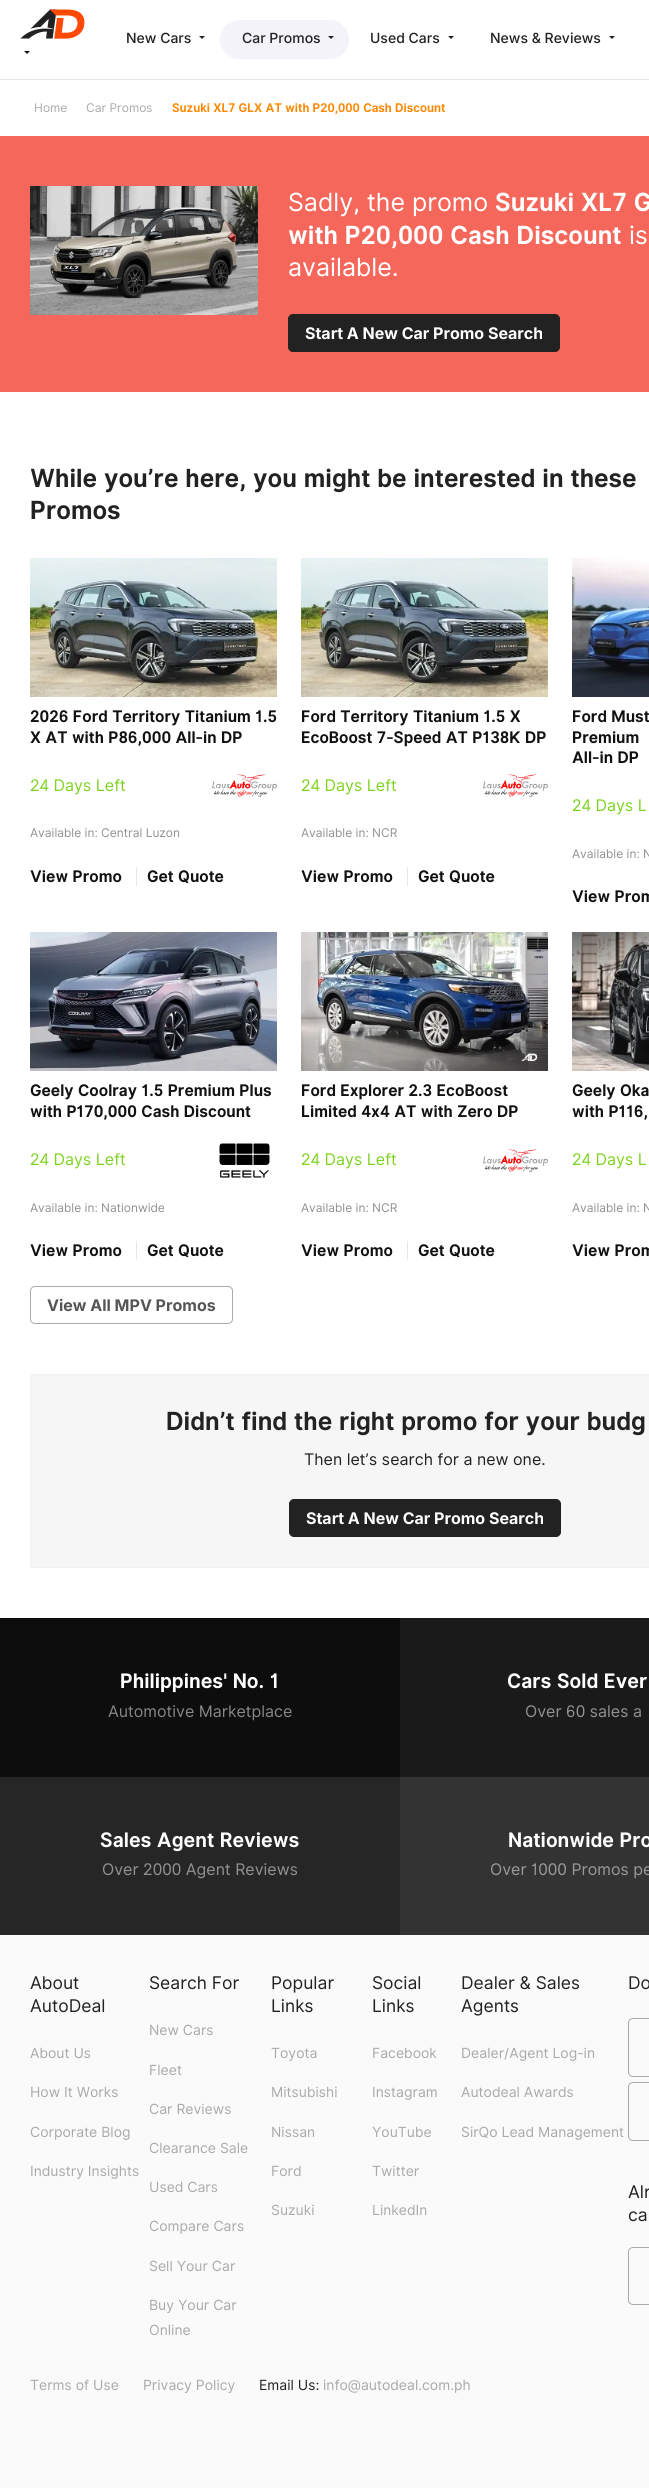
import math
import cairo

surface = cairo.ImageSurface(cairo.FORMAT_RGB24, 649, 2488)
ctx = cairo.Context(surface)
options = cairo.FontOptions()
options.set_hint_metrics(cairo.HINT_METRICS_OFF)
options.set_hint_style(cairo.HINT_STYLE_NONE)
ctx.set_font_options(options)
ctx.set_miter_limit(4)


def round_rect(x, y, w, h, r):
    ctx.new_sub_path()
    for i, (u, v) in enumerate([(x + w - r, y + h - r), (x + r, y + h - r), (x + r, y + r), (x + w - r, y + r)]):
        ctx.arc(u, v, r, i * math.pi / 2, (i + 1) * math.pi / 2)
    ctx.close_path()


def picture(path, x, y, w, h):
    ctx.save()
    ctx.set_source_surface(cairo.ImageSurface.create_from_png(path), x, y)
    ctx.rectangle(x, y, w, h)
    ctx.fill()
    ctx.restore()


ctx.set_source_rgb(1, 1, 1)
ctx.paint()
ctx.set_source_rgb(0.906, 0.906, 0.906)
ctx.rectangle(0, 79, 649, 1)
ctx.fill()
picture("img1.png", 20, 9, 65, 30)
ctx.set_source_rgb(0.067, 0.067, 0.067)
ctx.new_path()
ctx.move_to(24, 51)
ctx.line_to(30, 51)
ctx.line_to(27, 54)
ctx.close_path()
ctx.fill()
ctx.select_font_face("Inter Medium")
ctx.set_font_size(14)
ctx.set_source_rgb(0.133, 0.133, 0.133)
ctx.move_to(126, 43)
ctx.show_text("New Cars")
ctx.new_path()
ctx.move_to(199, 36)
ctx.line_to(205, 36)
ctx.line_to(202, 39)
ctx.close_path()
ctx.fill()
ctx.set_source_rgb(0.953, 0.953, 0.973)
round_rect(220, 20, 129, 39, 19.5)
ctx.fill()
ctx.set_source_rgb(0.133, 0.133, 0.133)
ctx.move_to(242, 43)
ctx.show_text("Car Promos")
ctx.new_path()
ctx.move_to(328, 36)
ctx.line_to(334, 36)
ctx.line_to(331, 39)
ctx.close_path()
ctx.fill()
ctx.move_to(370, 43)
ctx.show_text("Used Cars")
ctx.new_path()
ctx.move_to(448, 36)
ctx.line_to(454, 36)
ctx.line_to(451, 39)
ctx.close_path()
ctx.fill()
ctx.move_to(490, 43)
ctx.show_text("News & Reviews")
ctx.new_path()
ctx.move_to(609, 36)
ctx.line_to(615, 36)
ctx.line_to(612, 39)
ctx.close_path()
ctx.fill()
ctx.select_font_face("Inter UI")
ctx.set_font_size(12)
ctx.set_source_rgb(0.667, 0.667, 0.667)
ctx.move_to(34, 112)
ctx.show_text("Home")
ctx.move_to(86, 112)
ctx.show_text("Car Promos")
ctx.select_font_face("Inter UI", cairo.FONT_SLANT_NORMAL, cairo.FONT_WEIGHT_BOLD)
ctx.set_source_rgb(1, 0.529, 0)
ctx.move_to(172, 112)
ctx.show_text("Suzuki XL7 GLX AT with P20,000 Cash Discount")
ctx.set_source_rgb(0.961, 0.404, 0.357)
ctx.rectangle(0, 136, 649, 256)
ctx.fill()
picture("img2.png", 30, 186, 228, 129)
ctx.select_font_face("Inter UI")
ctx.set_font_size(25)
ctx.set_source_rgb(1, 1, 1)
ctx.move_to(288, 211)
ctx.show_text("Sadly, the promo")
ctx.select_font_face("Inter UI", cairo.FONT_SLANT_NORMAL, cairo.FONT_WEIGHT_BOLD)
ctx.move_to(495, 211)
ctx.show_text("Suzuki XL7 G")
ctx.move_to(288, 244)
ctx.show_text("with P20,000 Cash Discount")
ctx.select_font_face("Inter UI")
ctx.move_to(629, 244)
ctx.show_text("is")
ctx.move_to(288, 276)
ctx.show_text("available.")
ctx.set_source_rgb(0.133, 0.133, 0.133)
round_rect(288.5, 314.5, 271, 37, 4.5)
ctx.fill_preserve()
ctx.set_line_width(1)
ctx.stroke()
ctx.select_font_face("Inter", cairo.FONT_SLANT_NORMAL, cairo.FONT_WEIGHT_BOLD)
ctx.set_font_size(16)
ctx.set_source_rgb(1, 1, 1)
ctx.move_to(305, 339)
ctx.show_text("Start A New Car Promo Search")
ctx.select_font_face("Inter UI", cairo.FONT_SLANT_NORMAL, cairo.FONT_WEIGHT_BOLD)
ctx.set_font_size(25)
ctx.set_source_rgb(0.133, 0.133, 0.133)
ctx.move_to(30, 487)
ctx.show_text("While you’re here, you might be interested in these")
ctx.move_to(30, 519)
ctx.show_text("Promos")
picture("img3.png", 30, 558, 247, 139)
ctx.set_font_size(16)
ctx.set_source_rgb(0.067, 0.067, 0.067)
ctx.move_to(30, 722)
ctx.show_text("2026 Ford Territory Titanium 1.5")
ctx.move_to(30, 743)
ctx.show_text("X AT with P86,000 All-in DP")
ctx.select_font_face("Inter UI")
ctx.set_source_rgb(0.494, 0.827, 0.129)
ctx.move_to(30, 791)
ctx.show_text("24 Days Left")
picture("img4.png", 212, 774, 65, 23)
ctx.set_font_size(12)
ctx.set_source_rgb(0.569, 0.569, 0.569)
ctx.move_to(30, 837)
ctx.show_text("Available in: Central Luzon")
ctx.select_font_face("Inter UI", cairo.FONT_SLANT_NORMAL, cairo.FONT_WEIGHT_BOLD)
ctx.set_font_size(16)
ctx.set_source_rgb(0.067, 0.067, 0.067)
ctx.move_to(30, 882)
ctx.show_text("View Promo")
ctx.move_to(147, 882)
ctx.show_text("Get Quote")
ctx.set_source_rgb(0.906, 0.906, 0.906)
ctx.rectangle(136, 867, 1, 19)
ctx.fill()
picture("img3.png", 301, 558, 247, 139)
ctx.set_source_rgb(0.067, 0.067, 0.067)
ctx.move_to(301, 722)
ctx.show_text("Ford Territory Titanium 1.5 X")
ctx.move_to(301, 743)
ctx.show_text("EcoBoost 7-Speed AT P138K DP")
ctx.select_font_face("Inter UI")
ctx.set_source_rgb(0.494, 0.827, 0.129)
ctx.move_to(301, 791)
ctx.show_text("24 Days Left")
picture("img5.png", 483, 774, 65, 23)
ctx.set_font_size(12)
ctx.set_source_rgb(0.569, 0.569, 0.569)
ctx.move_to(301, 837)
ctx.show_text("Available in: NCR")
ctx.select_font_face("Inter UI", cairo.FONT_SLANT_NORMAL, cairo.FONT_WEIGHT_BOLD)
ctx.set_font_size(16)
ctx.set_source_rgb(0.067, 0.067, 0.067)
ctx.move_to(301, 882)
ctx.show_text("View Promo")
ctx.move_to(418, 882)
ctx.show_text("Get Quote")
ctx.set_source_rgb(0.906, 0.906, 0.906)
ctx.rectangle(407, 867, 1, 19)
ctx.fill()
picture("img6.png", 572, 558, 77, 139)
ctx.set_source_rgb(0.067, 0.067, 0.067)
ctx.move_to(572, 722)
ctx.show_text("Ford Must")
ctx.move_to(572, 743)
ctx.show_text("Premium")
ctx.move_to(572, 763)
ctx.show_text("All-in DP")
ctx.select_font_face("Inter UI")
ctx.set_source_rgb(0.494, 0.827, 0.129)
ctx.move_to(572, 811)
ctx.show_text("24 Days L")
ctx.set_font_size(12)
ctx.set_source_rgb(0.569, 0.569, 0.569)
ctx.move_to(572, 858)
ctx.show_text("Available in: N")
ctx.select_font_face("Inter UI", cairo.FONT_SLANT_NORMAL, cairo.FONT_WEIGHT_BOLD)
ctx.set_font_size(16)
ctx.set_source_rgb(0.067, 0.067, 0.067)
ctx.move_to(572, 902)
ctx.show_text("View Prom")
picture("img7.png", 30, 932, 247, 139)
ctx.move_to(30, 1096)
ctx.show_text("Geely Coolray 1.5 Premium Plus")
ctx.move_to(30, 1117)
ctx.show_text("with P170,000 Cash Discount")
ctx.select_font_face("Inter UI")
ctx.set_source_rgb(0.494, 0.827, 0.129)
ctx.move_to(30, 1165)
ctx.show_text("24 Days Left")
picture("img8.png", 219, 1143, 51, 35)
ctx.set_font_size(12)
ctx.set_source_rgb(0.569, 0.569, 0.569)
ctx.move_to(30, 1212)
ctx.show_text("Available in: Nationwide")
ctx.select_font_face("Inter UI", cairo.FONT_SLANT_NORMAL, cairo.FONT_WEIGHT_BOLD)
ctx.set_font_size(16)
ctx.set_source_rgb(0.067, 0.067, 0.067)
ctx.move_to(30, 1256)
ctx.show_text("View Promo")
ctx.move_to(147, 1256)
ctx.show_text("Get Quote")
ctx.set_source_rgb(0.906, 0.906, 0.906)
ctx.rectangle(136, 1241, 1, 19)
ctx.fill()
picture("img9.png", 301, 932, 247, 139)
ctx.set_source_rgb(0.067, 0.067, 0.067)
ctx.move_to(301, 1096)
ctx.show_text("Ford Explorer 2.3 EcoBoost")
ctx.move_to(301, 1117)
ctx.show_text("Limited 4x4 AT with Zero DP")
ctx.select_font_face("Inter UI")
ctx.set_source_rgb(0.494, 0.827, 0.129)
ctx.move_to(301, 1165)
ctx.show_text("24 Days Left")
picture("img5.png", 483, 1149, 65, 23)
ctx.set_font_size(12)
ctx.set_source_rgb(0.569, 0.569, 0.569)
ctx.move_to(301, 1212)
ctx.show_text("Available in: NCR")
ctx.select_font_face("Inter UI", cairo.FONT_SLANT_NORMAL, cairo.FONT_WEIGHT_BOLD)
ctx.set_font_size(16)
ctx.set_source_rgb(0.067, 0.067, 0.067)
ctx.move_to(301, 1256)
ctx.show_text("View Promo")
ctx.move_to(418, 1256)
ctx.show_text("Get Quote")
ctx.set_source_rgb(0.906, 0.906, 0.906)
ctx.rectangle(407, 1241, 1, 19)
ctx.fill()
picture("img10.png", 572, 932, 77, 139)
ctx.set_source_rgb(0.067, 0.067, 0.067)
ctx.move_to(572, 1096)
ctx.show_text("Geely Oka")
ctx.move_to(572, 1117)
ctx.show_text("with P116,")
ctx.select_font_face("Inter UI")
ctx.set_source_rgb(0.494, 0.827, 0.129)
ctx.move_to(572, 1165)
ctx.show_text("24 Days L")
ctx.set_font_size(12)
ctx.set_source_rgb(0.569, 0.569, 0.569)
ctx.move_to(572, 1212)
ctx.show_text("Available in: N")
ctx.select_font_face("Inter UI", cairo.FONT_SLANT_NORMAL, cairo.FONT_WEIGHT_BOLD)
ctx.set_font_size(16)
ctx.set_source_rgb(0.067, 0.067, 0.067)
ctx.move_to(572, 1256)
ctx.show_text("View Prom")
round_rect(30.5, 1286.5, 202, 37, 4.5)
ctx.set_source_rgb(0.667, 0.667, 0.667)
ctx.stroke()
ctx.select_font_face("Inter", cairo.FONT_SLANT_NORMAL, cairo.FONT_WEIGHT_BOLD)
ctx.set_source_rgb(0.333, 0.333, 0.333)
ctx.move_to(47, 1311)
ctx.show_text("View All MPV Promos")
ctx.set_source_rgb(0.961, 0.961, 0.961)
round_rect(30.5, 1374.5, 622, 193, 2.5)
ctx.fill_preserve()
ctx.set_source_rgb(0.945, 0.945, 0.945)
ctx.stroke()
ctx.select_font_face("Inter UI", cairo.FONT_SLANT_NORMAL, cairo.FONT_WEIGHT_BOLD)
ctx.set_font_size(25)
ctx.set_source_rgb(0.133, 0.133, 0.133)
ctx.move_to(166, 1430)
ctx.show_text("Didn’t find the right promo for your budg")
ctx.select_font_face("Inter UI")
ctx.set_font_size(16)
ctx.move_to(304, 1465)
ctx.show_text("Then let’s search for a new one.")
round_rect(289.5, 1499.5, 271, 37, 4.5)
ctx.fill_preserve()
ctx.stroke()
ctx.select_font_face("Inter", cairo.FONT_SLANT_NORMAL, cairo.FONT_WEIGHT_BOLD)
ctx.set_source_rgb(1, 1, 1)
ctx.move_to(306, 1524)
ctx.show_text("Start A New Car Promo Search")
ctx.set_source_rgb(0.98, 0.98, 0.98)
ctx.rectangle(0, 1935, 649, 553)
ctx.fill()
ctx.set_source_rgb(0.051, 0.051, 0.051)
ctx.rectangle(0, 1618, 400, 159)
ctx.fill()
ctx.select_font_face("Inter UI", cairo.FONT_SLANT_NORMAL, cairo.FONT_WEIGHT_BOLD)
ctx.set_font_size(20)
ctx.set_source_rgb(1, 1, 1)
ctx.move_to(120, 1688)
ctx.show_text("Philippines' No. 1")
ctx.select_font_face("Inter UI")
ctx.set_font_size(16)
ctx.set_source_rgb(0.525, 0.525, 0.525)
ctx.move_to(108, 1717)
ctx.show_text("Automotive Marketplace")
ctx.set_source_rgb(0.102, 0.102, 0.102)
ctx.rectangle(400, 1618, 249, 159)
ctx.fill()
ctx.select_font_face("Inter UI", cairo.FONT_SLANT_NORMAL, cairo.FONT_WEIGHT_BOLD)
ctx.set_font_size(20)
ctx.set_source_rgb(1, 1, 1)
ctx.move_to(507, 1688)
ctx.show_text("Cars Sold Ever")
ctx.select_font_face("Inter UI")
ctx.set_font_size(16)
ctx.set_source_rgb(0.569, 0.569, 0.569)
ctx.move_to(525, 1717)
ctx.show_text("Over 60 sales a")
ctx.set_source_rgb(0.149, 0.149, 0.149)
ctx.rectangle(0, 1777, 400, 158)
ctx.fill()
ctx.select_font_face("Inter UI", cairo.FONT_SLANT_NORMAL, cairo.FONT_WEIGHT_BOLD)
ctx.set_font_size(20)
ctx.set_source_rgb(1, 1, 1)
ctx.move_to(100, 1847)
ctx.show_text("Sales Agent Reviews")
ctx.select_font_face("Inter UI")
ctx.set_font_size(16)
ctx.set_source_rgb(0.569, 0.569, 0.569)
ctx.move_to(102, 1875)
ctx.show_text("Over 2000 Agent Reviews")
ctx.set_source_rgb(0.2, 0.2, 0.2)
ctx.rectangle(400, 1777, 249, 158)
ctx.fill()
ctx.select_font_face("Inter UI", cairo.FONT_SLANT_NORMAL, cairo.FONT_WEIGHT_BOLD)
ctx.set_font_size(20)
ctx.set_source_rgb(1, 1, 1)
ctx.move_to(508, 1847)
ctx.show_text("Nationwide Pro")
ctx.select_font_face("Inter UI")
ctx.set_font_size(16)
ctx.set_source_rgb(0.6, 0.6, 0.6)
ctx.move_to(490, 1875)
ctx.show_text("Over 1000 Promos pe")
ctx.set_font_size(17.5)
ctx.set_source_rgb(0.133, 0.133, 0.133)
ctx.move_to(30, 1989)
ctx.show_text("About")
ctx.move_to(30, 2012)
ctx.show_text("AutoDeal")
ctx.set_font_size(14)
ctx.set_source_rgb(0.667, 0.667, 0.667)
ctx.move_to(30, 2058)
ctx.show_text("About Us")
ctx.move_to(30, 2097)
ctx.show_text("How It Works")
ctx.move_to(30, 2137)
ctx.show_text("Corporate Blog")
ctx.move_to(30, 2176)
ctx.show_text("Industry Insights")
ctx.set_font_size(17.5)
ctx.set_source_rgb(0.133, 0.133, 0.133)
ctx.move_to(149, 1989)
ctx.show_text("Search For")
ctx.set_font_size(14)
ctx.set_source_rgb(0.667, 0.667, 0.667)
ctx.move_to(149, 2035)
ctx.show_text("New Cars")
ctx.move_to(149, 2075)
ctx.show_text("Fleet")
ctx.move_to(149, 2114)
ctx.show_text("Car Reviews")
ctx.move_to(149, 2153)
ctx.show_text("Clearance Sale")
ctx.move_to(149, 2192)
ctx.show_text("Used Cars")
ctx.move_to(149, 2231)
ctx.show_text("Compare Cars")
ctx.move_to(149, 2271)
ctx.show_text("Sell Your Car")
ctx.move_to(149, 2310)
ctx.show_text("Buy Your Car")
ctx.move_to(149, 2335)
ctx.show_text("Online")
ctx.set_font_size(17.5)
ctx.set_source_rgb(0.133, 0.133, 0.133)
ctx.move_to(271, 1989)
ctx.show_text("Popular")
ctx.move_to(271, 2012)
ctx.show_text("Links")
ctx.set_font_size(14)
ctx.set_source_rgb(0.667, 0.667, 0.667)
ctx.move_to(271, 2058)
ctx.show_text("Toyota")
ctx.move_to(271, 2097)
ctx.show_text("Mitsubishi")
ctx.move_to(271, 2137)
ctx.show_text("Nissan")
ctx.move_to(271, 2176)
ctx.show_text("Ford")
ctx.move_to(271, 2215)
ctx.show_text("Suzuki")
ctx.set_font_size(17.5)
ctx.set_source_rgb(0.133, 0.133, 0.133)
ctx.move_to(372, 1989)
ctx.show_text("Social")
ctx.move_to(372, 2012)
ctx.show_text("Links")
ctx.set_font_size(14)
ctx.set_source_rgb(0.667, 0.667, 0.667)
ctx.move_to(372, 2058)
ctx.show_text("Facebook")
ctx.move_to(372, 2097)
ctx.show_text("Instagram")
ctx.move_to(372, 2137)
ctx.show_text("YouTube")
ctx.move_to(372, 2176)
ctx.show_text("Twitter")
ctx.move_to(372, 2215)
ctx.show_text("LinkedIn")
ctx.set_font_size(17.5)
ctx.set_source_rgb(0.133, 0.133, 0.133)
ctx.move_to(461, 1989)
ctx.show_text("Dealer & Sales")
ctx.move_to(461, 2012)
ctx.show_text("Agents")
ctx.set_font_size(14)
ctx.set_source_rgb(0.667, 0.667, 0.667)
ctx.move_to(461, 2058)
ctx.show_text("Dealer/Agent Log-in")
ctx.move_to(461, 2097)
ctx.show_text("Autodeal Awards")
ctx.move_to(461, 2137)
ctx.show_text("SirQo Lead Management")
ctx.set_font_size(17.5)
ctx.set_source_rgb(0.133, 0.133, 0.133)
ctx.move_to(628, 1989)
ctx.show_text("Do")
round_rect(628.5, 2018.5, 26, 58, 4.5)
ctx.set_source_rgb(0.667, 0.667, 0.667)
ctx.stroke()
round_rect(628.5, 2082.5, 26, 58, 4.5)
ctx.stroke()
ctx.set_source_rgb(0.133, 0.133, 0.133)
ctx.move_to(628, 2198)
ctx.show_text("Alr")
ctx.move_to(628, 2221)
ctx.show_text("ca")
round_rect(628.5, 2247.5, 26, 57, 4.5)
ctx.set_source_rgb(0.667, 0.667, 0.667)
ctx.stroke()
ctx.set_font_size(14)
ctx.move_to(30, 2390)
ctx.show_text("Terms of Use")
ctx.move_to(143, 2390)
ctx.show_text("Privacy Policy")
ctx.set_source_rgb(0.133, 0.133, 0.133)
ctx.move_to(259, 2390)
ctx.show_text("Email Us:")
ctx.set_source_rgb(0.667, 0.667, 0.667)
ctx.move_to(323, 2390)
ctx.show_text("info@autodeal.com.ph")
surface.write_to_png("page.png")
